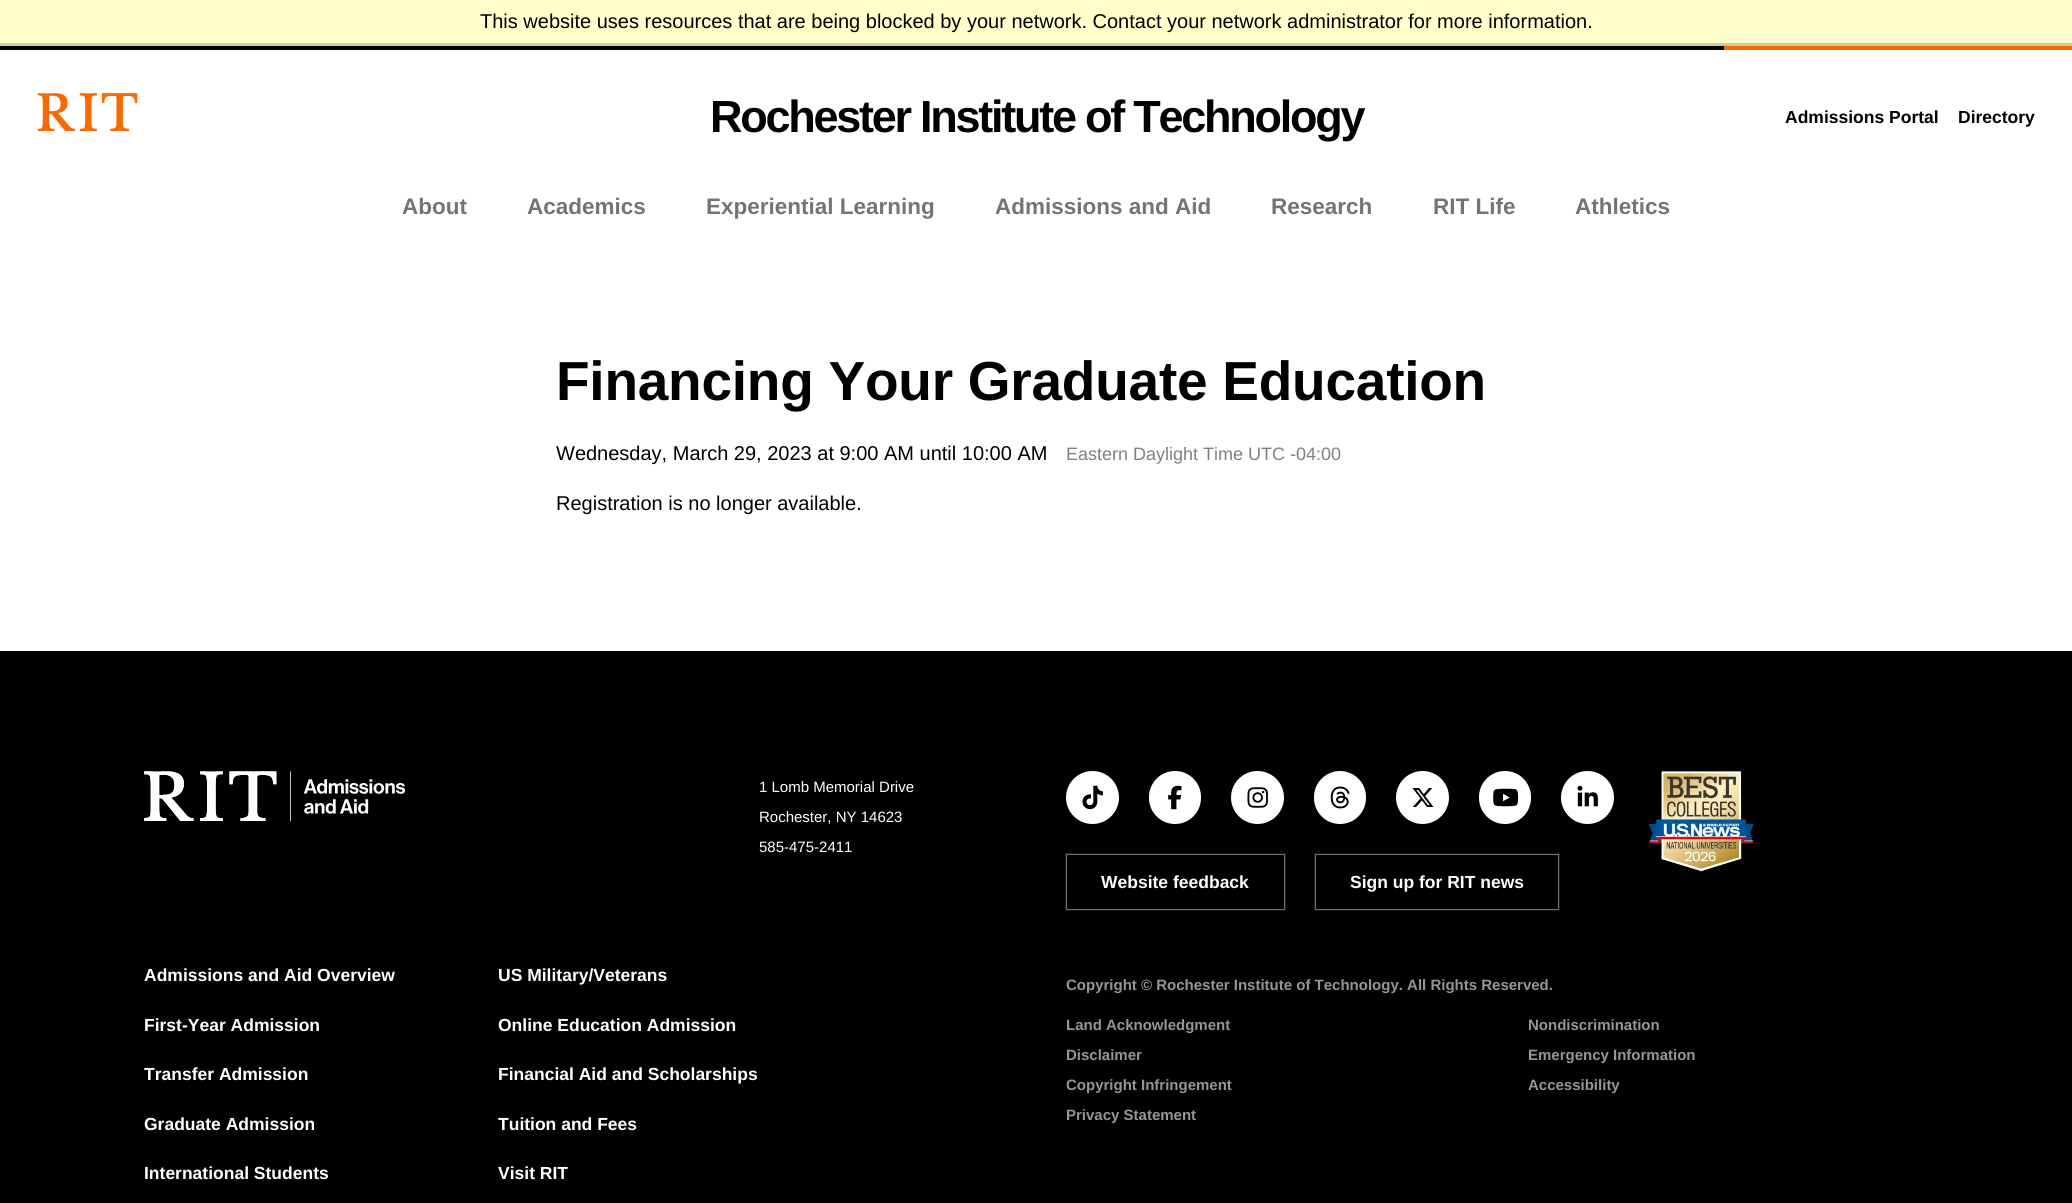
import math
import cairo

surface = cairo.ImageSurface(cairo.FORMAT_RGB24, 2072, 1203)
ctx = cairo.Context(surface)
options = cairo.FontOptions()
options.set_hint_metrics(cairo.HINT_METRICS_OFF)
options.set_hint_style(cairo.HINT_STYLE_NONE)
ctx.set_font_options(options)
ctx.set_miter_limit(4)


def spaced_text(x, y, s, letter, word):
    ctx.move_to(x, y)
    for ch in s:
        ctx.show_text(ch)
        ctx.rel_move_to(letter + word * (ch == ' '), 0)


def round_rect(x, y, w, h, r):
    ctx.new_sub_path()
    for i, (u, v) in enumerate([(x + w - r, y + h - r), (x + r, y + h - r), (x + r, y + r), (x + w - r, y + r)]):
        ctx.arc(u, v, r, i * math.pi / 2, (i + 1) * math.pi / 2)
    ctx.close_path()


def picture(path, x, y, w, h):
    ctx.save()
    ctx.set_source_surface(cairo.ImageSurface.create_from_png(path), x, y)
    ctx.rectangle(x, y, w, h)
    ctx.fill()
    ctx.restore()


ctx.set_source_rgb(1, 1, 1)
ctx.paint()
ctx.set_source_rgb(1, 1, 0.8)
ctx.rectangle(0, 0, 2072, 43)
ctx.fill()
ctx.set_source_rgb(0.8, 0.8, 0.6)
ctx.rectangle(0, 43, 2072, 3)
ctx.fill()
ctx.select_font_face("Liberation Sans")
ctx.set_font_size(20)
ctx.set_source_rgb(0, 0, 0)
ctx.move_to(480, 28)
ctx.show_text("This website uses resources that are being blocked by your network. Contact your network administrator for more information.")
ctx.rectangle(0, 46, 1724, 4)
ctx.fill()
ctx.set_source_rgb(0.969, 0.412, 0.008)
ctx.rectangle(1724, 46, 348, 4)
ctx.fill()
picture("img1.png", 38, 93, 100, 39)
ctx.select_font_face("Liberation Sans", cairo.FONT_SLANT_NORMAL, cairo.FONT_WEIGHT_BOLD)
ctx.set_font_size(45)
ctx.set_source_rgb(0, 0, 0)
spaced_text(710, 132, "Rochester Institute of Technology", -2.25, 0)
ctx.set_font_size(17.5)
ctx.move_to(1785, 123)
ctx.show_text("Admissions Portal")
ctx.move_to(1958, 123)
ctx.show_text("Directory")
ctx.set_font_size(22.5)
ctx.set_source_rgb(0.447, 0.459, 0.471)
ctx.move_to(402, 214)
ctx.show_text("About")
ctx.move_to(527, 214)
ctx.show_text("Academics")
ctx.move_to(706, 214)
ctx.show_text("Experiential Learning")
ctx.move_to(995, 214)
ctx.show_text("Admissions and Aid")
ctx.move_to(1271, 214)
ctx.show_text("Research")
ctx.move_to(1433, 214)
ctx.show_text("RIT Life")
ctx.move_to(1575, 214)
ctx.show_text("Athletics")
ctx.set_font_size(55)
ctx.set_source_rgb(0, 0, 0)
spaced_text(556, 400, "Financing Your Graduate Education", -0.25, 0)
ctx.select_font_face("Liberation Sans")
ctx.set_font_size(20)
ctx.move_to(556, 460)
ctx.show_text("Wednesday, March 29, 2023 at 9:00 AM until 10:00 AM")
ctx.set_font_size(18)
ctx.set_source_rgb(0.502, 0.502, 0.502)
ctx.move_to(1066, 460)
ctx.show_text("Eastern Daylight Time UTC -04:00")
ctx.set_font_size(20)
ctx.set_source_rgb(0, 0, 0)
ctx.move_to(556, 510)
ctx.show_text("Registration is no longer available.")
ctx.rectangle(0, 651, 2072, 552)
ctx.fill()
picture("img2.png", 144, 771, 261, 50)
ctx.set_font_size(15)
ctx.set_source_rgb(1, 1, 1)
ctx.move_to(759, 792)
ctx.show_text("1 Lomb Memorial Drive")
ctx.move_to(759, 822)
ctx.show_text("Rochester, NY 14623")
ctx.move_to(759, 852)
ctx.show_text("585-475-2411")
picture("img3.png", 1648, 771, 106, 101)
ctx.arc(1092.5, 797.5, 26.5, 0, 2 * math.pi)
ctx.fill()
picture("img4.png", 1082, 785, 21, 25)
round_rect(1149, 771, 52, 53, 26)
ctx.fill()
picture("img5.png", 1168, 785, 14, 25)
ctx.arc(1257.5, 797.5, 26.5, 0, 2 * math.pi)
ctx.fill()
picture("img6.png", 1247, 787, 21, 21)
round_rect(1314, 771, 52, 53, 26)
ctx.fill()
picture("img7.png", 1330, 786, 20, 23)
ctx.arc(1422.5, 797.5, 26.5, 0, 2 * math.pi)
ctx.fill()
picture("img8.png", 1412, 788, 22, 19)
round_rect(1479, 771, 52, 53, 26)
ctx.fill()
picture("img9.png", 1493, 788, 26, 19)
ctx.arc(1587.5, 797.5, 26.5, 0, 2 * math.pi)
ctx.fill()
picture("img10.png", 1577, 785, 21, 22)
ctx.rectangle(1066, 854, 219, 56)
ctx.set_source_rgb(0.086, 0.094, 0.102)
ctx.stroke()
ctx.rectangle(1066.5, 854.5, 218, 55)
ctx.set_source_rgb(0.424, 0.459, 0.49)
ctx.set_line_width(1)
ctx.stroke()
ctx.select_font_face("Liberation Sans", cairo.FONT_SLANT_NORMAL, cairo.FONT_WEIGHT_BOLD)
ctx.set_font_size(17.5)
ctx.set_source_rgb(1, 1, 1)
ctx.move_to(1101, 888)
ctx.show_text("Website feedback")
ctx.rectangle(1315, 854, 244, 56)
ctx.set_source_rgb(0.086, 0.094, 0.102)
ctx.set_line_width(2)
ctx.stroke()
ctx.rectangle(1315.5, 854.5, 243, 55)
ctx.set_source_rgb(0.424, 0.459, 0.49)
ctx.set_line_width(1)
ctx.stroke()
ctx.set_source_rgb(1, 1, 1)
ctx.move_to(1350, 888)
ctx.show_text("Sign up for RIT news")
ctx.move_to(144, 981)
ctx.show_text("Admissions and Aid Overview")
ctx.move_to(144, 1031)
ctx.show_text("First-Year Admission")
ctx.move_to(144, 1080)
ctx.show_text("Transfer Admission")
ctx.move_to(144, 1130)
ctx.show_text("Graduate Admission")
ctx.move_to(144, 1179)
ctx.show_text("International Students")
ctx.move_to(498, 981)
ctx.show_text("US Military/Veterans")
ctx.move_to(498, 1031)
ctx.show_text("Online Education Admission")
ctx.move_to(498, 1080)
ctx.show_text("Financial Aid and Scholarships")
ctx.move_to(498, 1130)
ctx.show_text("Tuition and Fees")
ctx.move_to(498, 1179)
ctx.show_text("Visit RIT")
ctx.set_font_size(15)
ctx.set_source_rgb(0.588, 0.588, 0.588)
ctx.move_to(1066, 990)
ctx.show_text("Copyright © Rochester Institute of Technology. All Rights Reserved.")
ctx.move_to(1066, 1030)
ctx.show_text("Land Acknowledgment")
ctx.move_to(1528, 1030)
ctx.show_text("Nondiscrimination")
ctx.move_to(1066, 1060)
ctx.show_text("Disclaimer")
ctx.move_to(1528, 1060)
ctx.show_text("Emergency Information")
ctx.move_to(1066, 1090)
ctx.show_text("Copyright Infringement")
ctx.move_to(1528, 1090)
ctx.show_text("Accessibility")
ctx.move_to(1066, 1120)
ctx.show_text("Privacy Statement")
surface.write_to_png("page.png")
